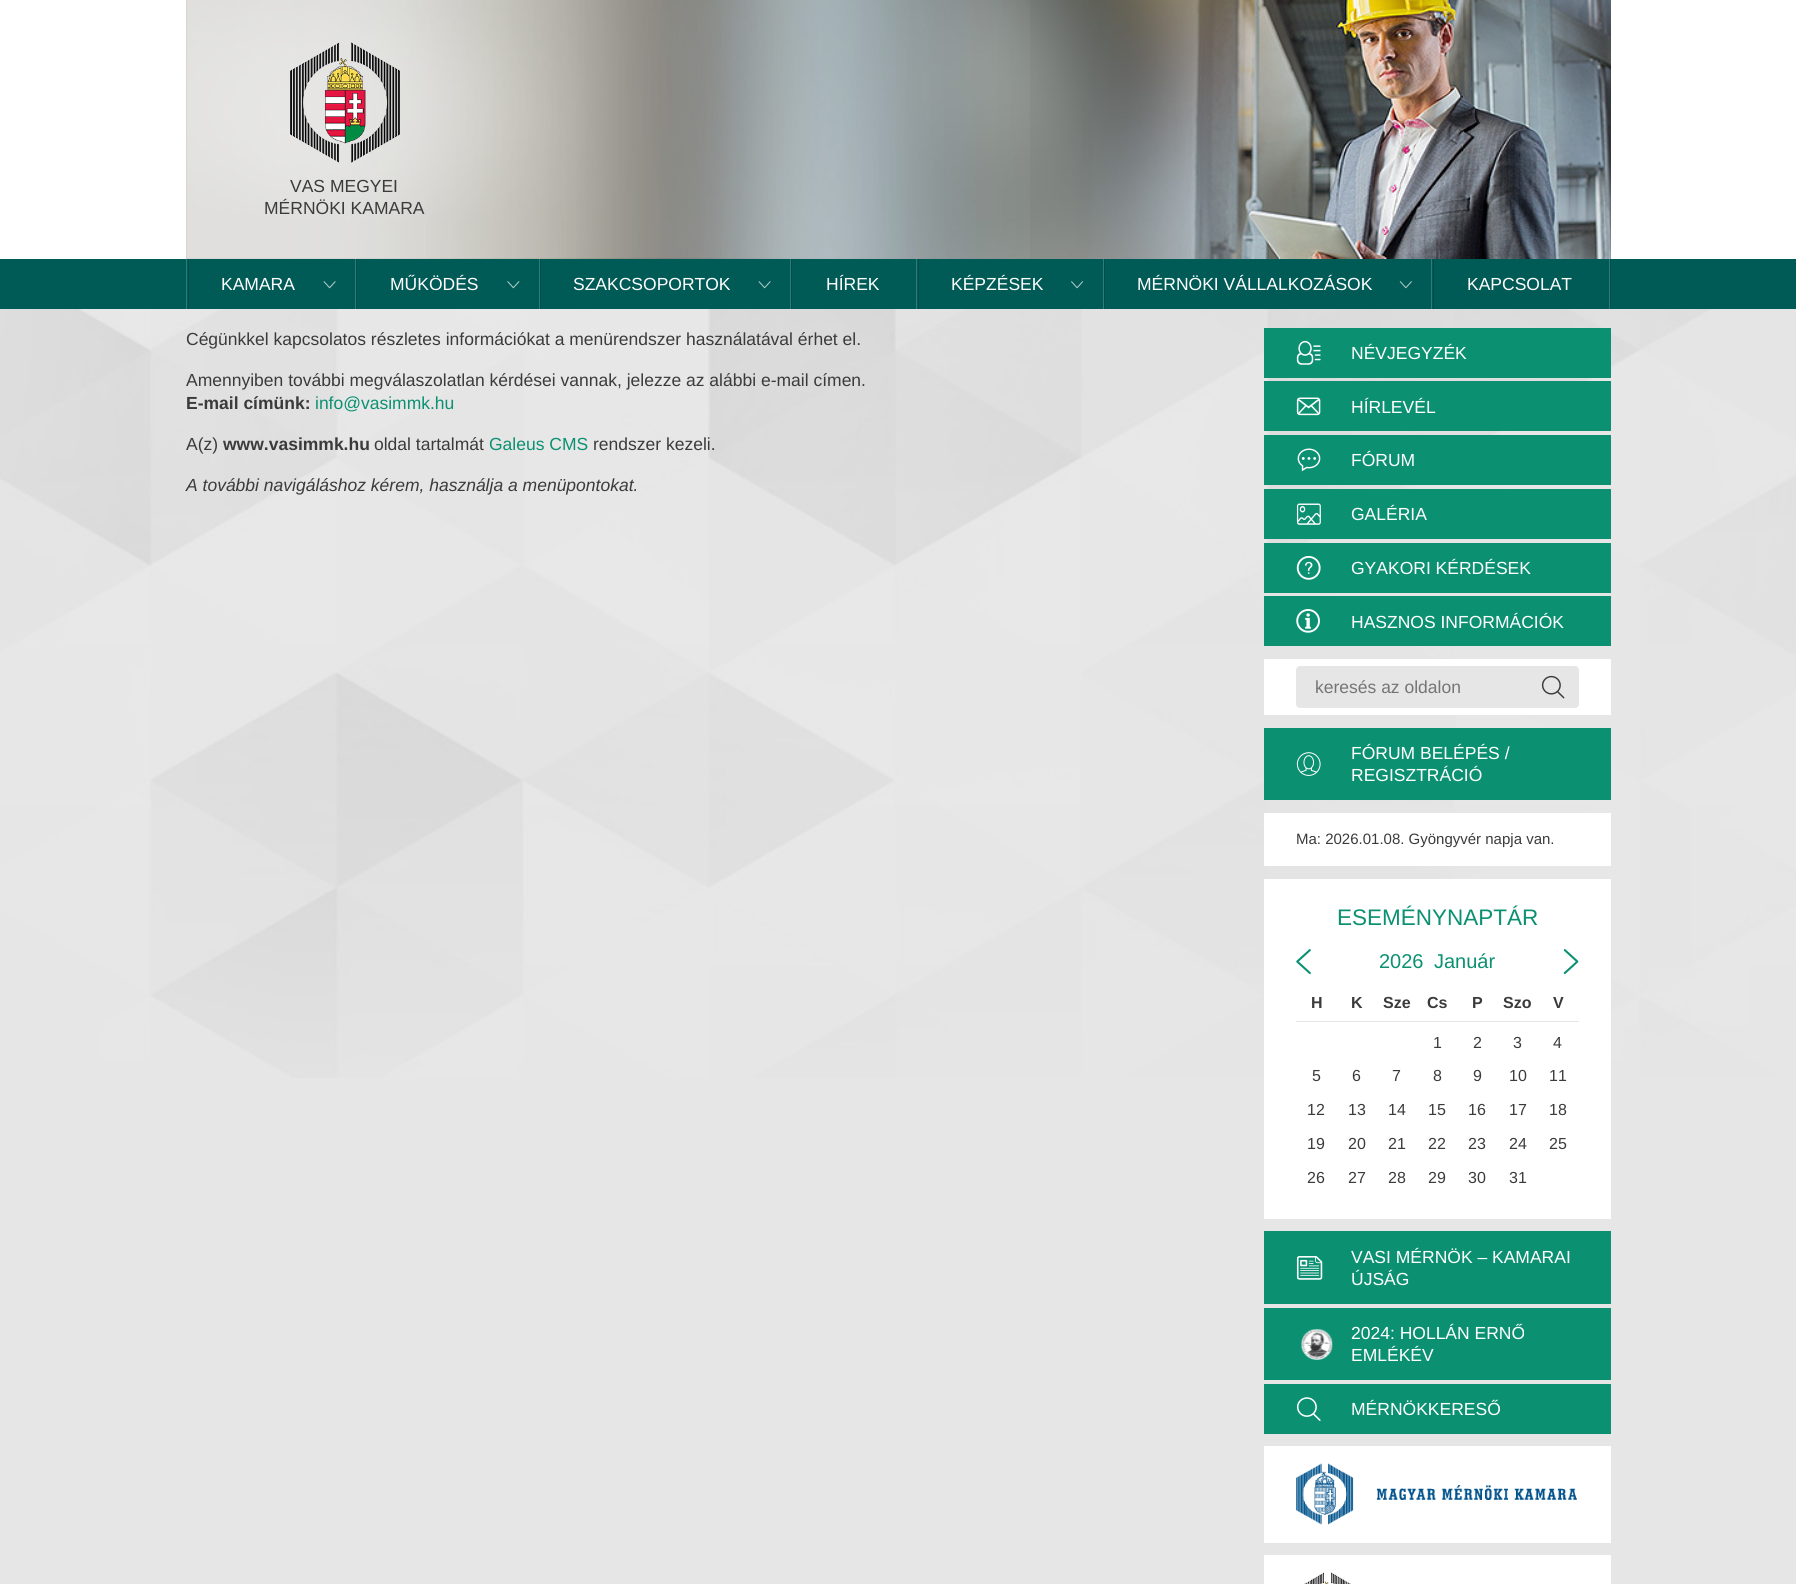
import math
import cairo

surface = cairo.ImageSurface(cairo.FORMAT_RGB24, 1796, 1584)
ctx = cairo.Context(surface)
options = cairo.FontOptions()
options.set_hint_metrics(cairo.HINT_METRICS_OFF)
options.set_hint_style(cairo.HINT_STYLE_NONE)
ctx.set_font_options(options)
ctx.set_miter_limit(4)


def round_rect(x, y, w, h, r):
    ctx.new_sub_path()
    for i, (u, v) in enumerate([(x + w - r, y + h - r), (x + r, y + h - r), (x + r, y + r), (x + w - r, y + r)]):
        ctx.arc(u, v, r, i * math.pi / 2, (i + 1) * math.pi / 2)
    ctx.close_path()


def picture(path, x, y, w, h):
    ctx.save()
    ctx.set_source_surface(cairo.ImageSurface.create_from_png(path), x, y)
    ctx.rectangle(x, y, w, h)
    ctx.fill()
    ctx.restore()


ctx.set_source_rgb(0.902, 0.902, 0.902)
ctx.paint()
picture("img1.png", 0, 309, 1796, 769)
ctx.set_source_rgb(1, 1, 1)
ctx.rectangle(0, 0, 1796, 259)
ctx.fill()
picture("img2.png", 186, 0, 1425, 259)
picture("img3.png", 186, 0, 844, 259)
picture("img4.png", 290, 42, 110, 121)
ctx.select_font_face("Liberation Sans")
ctx.set_font_size(17.5)
ctx.set_source_rgb(0.231, 0.231, 0.235)
ctx.move_to(290, 192)
ctx.show_text("VAS MEGYEI")
ctx.move_to(264, 214)
ctx.show_text("MÉRNÖKI KAMARA")
ctx.set_source_rgb(0, 0.353, 0.337)
ctx.rectangle(0, 259, 1796, 50)
ctx.fill()
ctx.set_source_rgb(0, 0.302, 0.286)
ctx.rectangle(1610, 259, 1, 50)
ctx.fill()
ctx.set_source_rgb(0.2, 0.482, 0.471)
ctx.rectangle(186, 259, 1, 50)
ctx.fill()
ctx.set_source_rgb(0, 0.302, 0.286)
ctx.rectangle(188, 259, 1, 50)
ctx.fill()
ctx.set_source_rgb(1, 1, 1)
ctx.move_to(221, 290)
ctx.show_text("KAMARA")
picture("img5.png", 323, 281, 13, 8)
ctx.set_source_rgb(0.2, 0.482, 0.471)
ctx.rectangle(355, 259, 1, 50)
ctx.fill()
ctx.set_source_rgb(0, 0.302, 0.286)
ctx.rectangle(356, 259, 1, 50)
ctx.fill()
ctx.set_source_rgb(1, 1, 1)
ctx.move_to(390, 290)
ctx.show_text("MŰKÖDÉS")
picture("img6.png", 507, 281, 13, 8)
ctx.set_source_rgb(0.2, 0.482, 0.471)
ctx.rectangle(539, 259, 1, 50)
ctx.fill()
ctx.set_source_rgb(0, 0.302, 0.286)
ctx.rectangle(540, 259, 1, 50)
ctx.fill()
ctx.set_source_rgb(1, 1, 1)
ctx.move_to(573, 290)
ctx.show_text("SZAKCSOPORTOK")
picture("img5.png", 758, 281, 13, 8)
ctx.set_source_rgb(0.2, 0.482, 0.471)
ctx.rectangle(790, 259, 1, 50)
ctx.fill()
ctx.set_source_rgb(0, 0.302, 0.286)
ctx.rectangle(791, 259, 1, 50)
ctx.fill()
ctx.set_source_rgb(1, 1, 1)
ctx.move_to(826, 290)
ctx.show_text("HÍREK")
ctx.set_source_rgb(0.2, 0.482, 0.471)
ctx.rectangle(916, 259, 1, 50)
ctx.fill()
ctx.set_source_rgb(0, 0.302, 0.286)
ctx.rectangle(918, 259, 1, 50)
ctx.fill()
ctx.set_source_rgb(1, 1, 1)
ctx.move_to(951, 290)
ctx.show_text("KÉPZÉSEK")
picture("img7.png", 1071, 281, 13, 8)
ctx.set_source_rgb(0.2, 0.482, 0.471)
ctx.rectangle(1103, 259, 1, 50)
ctx.fill()
ctx.set_source_rgb(0, 0.302, 0.286)
ctx.rectangle(1104, 259, 1, 50)
ctx.fill()
ctx.set_source_rgb(1, 1, 1)
ctx.move_to(1137, 290)
ctx.show_text("MÉRNÖKI VÁLLALKOZÁSOK")
picture("img8.png", 1399, 281, 13, 8)
ctx.set_source_rgb(0.2, 0.482, 0.471)
ctx.rectangle(1431, 259, 1, 50)
ctx.fill()
ctx.set_source_rgb(0, 0.302, 0.286)
ctx.rectangle(1433, 259, 1, 50)
ctx.fill()
ctx.set_source_rgb(1, 1, 1)
ctx.move_to(1467, 290)
ctx.show_text("KAPCSOLAT")
ctx.set_source_rgb(0.2, 0.482, 0.471)
ctx.rectangle(1609, 259, 1, 50)
ctx.fill()
ctx.set_source_rgb(0.231, 0.231, 0.235)
ctx.move_to(186, 345)
ctx.show_text("Cégünkkel kapcsolatos részletes információkat a menürendszer használatával érhet el.")
ctx.move_to(186, 386)
ctx.show_text("Amennyiben további megválaszolatlan kérdései vannak, jelezze az alábbi e-mail címen.")
ctx.select_font_face("Liberation Sans", cairo.FONT_SLANT_NORMAL, cairo.FONT_WEIGHT_BOLD)
ctx.move_to(186, 409)
ctx.show_text("E-mail címünk:")
ctx.select_font_face("Liberation Sans")
ctx.set_source_rgb(0.043, 0.569, 0.447)
ctx.move_to(315, 409)
ctx.show_text("info@vasimmk.hu")
ctx.set_source_rgb(0.231, 0.231, 0.235)
ctx.move_to(186, 450)
ctx.show_text("A(z)")
ctx.select_font_face("Liberation Sans", cairo.FONT_SLANT_NORMAL, cairo.FONT_WEIGHT_BOLD)
ctx.move_to(223, 450)
ctx.show_text("www.vasimmk.hu")
ctx.select_font_face("Liberation Sans")
ctx.move_to(374, 450)
ctx.show_text("oldal tartalmát")
ctx.set_source_rgb(0.043, 0.569, 0.447)
ctx.move_to(489, 450)
ctx.show_text("Galeus CMS")
ctx.set_source_rgb(0.231, 0.231, 0.235)
ctx.move_to(593, 450)
ctx.show_text("rendszer kezeli.")
ctx.select_font_face("Liberation Sans", cairo.FONT_SLANT_ITALIC)
ctx.move_to(186, 491)
ctx.show_text("A további navigáláshoz kérem, használja a menüpontokat.")
ctx.set_source_rgb(0.043, 0.569, 0.447)
ctx.rectangle(1264, 328, 347, 50)
ctx.fill()
picture("img9.png", 1296, 340, 25, 25)
ctx.select_font_face("Liberation Sans")
ctx.set_source_rgb(1, 1, 1)
ctx.move_to(1351, 359)
ctx.show_text("NÉVJEGYZÉK")
ctx.set_source_rgb(0.043, 0.569, 0.447)
ctx.rectangle(1264, 381, 347, 50)
ctx.fill()
picture("img10.png", 1296, 397, 25, 19)
ctx.set_source_rgb(1, 1, 1)
ctx.move_to(1351, 413)
ctx.show_text("HÍRLEVÉL")
ctx.set_source_rgb(0.043, 0.569, 0.447)
ctx.rectangle(1264, 435, 347, 50)
ctx.fill()
picture("img11.png", 1297, 448, 24, 24)
ctx.set_source_rgb(1, 1, 1)
ctx.move_to(1351, 466)
ctx.show_text("FÓRUM")
ctx.set_source_rgb(0.043, 0.569, 0.447)
ctx.rectangle(1264, 489, 347, 50)
ctx.fill()
picture("img12.png", 1296, 503, 25, 22)
ctx.set_source_rgb(1, 1, 1)
ctx.move_to(1351, 520)
ctx.show_text("GALÉRIA")
ctx.set_source_rgb(0.043, 0.569, 0.447)
ctx.rectangle(1264, 543, 347, 50)
ctx.fill()
picture("img13.png", 1296, 555, 25, 25)
ctx.set_source_rgb(1, 1, 1)
ctx.move_to(1351, 574)
ctx.show_text("GYAKORI KÉRDÉSEK")
ctx.set_source_rgb(0.043, 0.569, 0.447)
ctx.rectangle(1264, 596, 347, 50)
ctx.fill()
picture("img14.png", 1296, 609, 24, 24)
ctx.set_source_rgb(1, 1, 1)
ctx.move_to(1351, 628)
ctx.show_text("HASZNOS INFORMÁCIÓK")
ctx.rectangle(1264, 659, 347, 56)
ctx.fill()
ctx.set_source_rgb(0.902, 0.902, 0.902)
round_rect(1296, 666, 283, 42, 4)
ctx.fill()
ctx.set_source_rgb(0.459, 0.459, 0.459)
ctx.move_to(1315, 693)
ctx.show_text("keresés az oldalon")
picture("img15.png", 1541, 675, 24, 24)
ctx.set_source_rgb(0.043, 0.569, 0.447)
ctx.rectangle(1264, 728, 347, 72)
ctx.fill()
picture("img16.png", 1296, 752, 25, 24)
ctx.set_source_rgb(1, 1, 1)
ctx.move_to(1351, 759)
ctx.show_text("FÓRUM BELÉPÉS /")
ctx.move_to(1351, 781)
ctx.show_text("REGISZTRÁCIÓ")
ctx.rectangle(1264, 813, 347, 53)
ctx.fill()
ctx.set_font_size(15)
ctx.set_source_rgb(0.231, 0.231, 0.235)
ctx.move_to(1296, 844)
ctx.show_text("Ma: 2026.01.08. Gyöngyvér napja van.")
ctx.set_source_rgb(1, 1, 1)
ctx.rectangle(1264, 879, 347, 340)
ctx.fill()
ctx.set_font_size(22.5)
ctx.set_source_rgb(0.043, 0.569, 0.447)
ctx.move_to(1337, 925)
ctx.show_text("ESEMÉNYNAPTÁR")
picture("img17.png", 1296, 949, 15, 25)
ctx.set_font_size(20)
ctx.move_to(1379, 968)
ctx.show_text("2026")
ctx.move_to(1434, 968)
ctx.show_text("Január")
picture("img18.png", 1563, 949, 16, 25)
ctx.select_font_face("Liberation Sans", cairo.FONT_SLANT_NORMAL, cairo.FONT_WEIGHT_BOLD)
ctx.set_font_size(16)
ctx.set_source_rgb(0.231, 0.231, 0.235)
ctx.move_to(1311, 1008)
ctx.show_text("H")
ctx.move_to(1351, 1008)
ctx.show_text("K")
ctx.move_to(1383, 1008)
ctx.show_text("Sze")
ctx.move_to(1427, 1008)
ctx.show_text("Cs")
ctx.move_to(1472, 1008)
ctx.show_text("P")
ctx.move_to(1503, 1008)
ctx.show_text("Szo")
ctx.set_source_rgb(0.902, 0.902, 0.902)
ctx.rectangle(1296, 1021, 283, 1)
ctx.fill()
ctx.set_source_rgb(0.231, 0.231, 0.235)
ctx.move_to(1553, 1008)
ctx.show_text("V")
ctx.select_font_face("Liberation Sans")
ctx.move_to(1433, 1048)
ctx.show_text("1")
ctx.move_to(1473, 1048)
ctx.show_text("2")
ctx.move_to(1513, 1048)
ctx.show_text("3")
ctx.move_to(1553, 1048)
ctx.show_text("4")
ctx.move_to(1312, 1081)
ctx.show_text("5")
ctx.move_to(1352, 1081)
ctx.show_text("6")
ctx.move_to(1392, 1081)
ctx.show_text("7")
ctx.move_to(1433, 1081)
ctx.show_text("8")
ctx.move_to(1473, 1081)
ctx.show_text("9")
ctx.move_to(1509, 1081)
ctx.show_text("10")
ctx.move_to(1549, 1081)
ctx.show_text("11")
ctx.move_to(1307, 1115)
ctx.show_text("12")
ctx.move_to(1348, 1115)
ctx.show_text("13")
ctx.move_to(1388, 1115)
ctx.show_text("14")
ctx.move_to(1428, 1115)
ctx.show_text("15")
ctx.move_to(1468, 1115)
ctx.show_text("16")
ctx.move_to(1509, 1115)
ctx.show_text("17")
ctx.move_to(1549, 1115)
ctx.show_text("18")
ctx.move_to(1307, 1149)
ctx.show_text("19")
ctx.move_to(1348, 1149)
ctx.show_text("20")
ctx.move_to(1388, 1149)
ctx.show_text("21")
ctx.move_to(1428, 1149)
ctx.show_text("22")
ctx.move_to(1468, 1149)
ctx.show_text("23")
ctx.move_to(1509, 1149)
ctx.show_text("24")
ctx.move_to(1549, 1149)
ctx.show_text("25")
ctx.move_to(1307, 1183)
ctx.show_text("26")
ctx.move_to(1348, 1183)
ctx.show_text("27")
ctx.move_to(1388, 1183)
ctx.show_text("28")
ctx.move_to(1428, 1183)
ctx.show_text("29")
ctx.move_to(1468, 1183)
ctx.show_text("30")
ctx.move_to(1509, 1183)
ctx.show_text("31")
ctx.set_source_rgb(0.043, 0.569, 0.447)
ctx.rectangle(1264, 1231, 347, 73)
ctx.fill()
picture("img19.png", 1296, 1256, 27, 24)
ctx.set_font_size(17.5)
ctx.set_source_rgb(1, 1, 1)
ctx.move_to(1351, 1263)
ctx.show_text("VASI MÉRNÖK – KAMARAI")
ctx.move_to(1351, 1285)
ctx.show_text("ÚJSÁG")
ctx.set_source_rgb(0.043, 0.569, 0.447)
ctx.rectangle(1264, 1308, 347, 72)
ctx.fill()
picture("img20.png", 1301, 1329, 32, 31)
ctx.set_source_rgb(1, 1, 1)
ctx.move_to(1351, 1339)
ctx.show_text("2024: HOLLÁN ERNŐ")
ctx.move_to(1351, 1361)
ctx.show_text("EMLÉKÉV")
ctx.set_source_rgb(0.043, 0.569, 0.447)
ctx.rectangle(1264, 1384, 347, 50)
ctx.fill()
picture("img21.png", 1296, 1397, 25, 24)
ctx.set_source_rgb(1, 1, 1)
ctx.move_to(1351, 1415)
ctx.show_text("MÉRNÖKKERESŐ")
ctx.rectangle(1264, 1446, 347, 97)
ctx.fill()
picture("img22.png", 1296, 1463, 281, 62)
ctx.rectangle(1264, 1555, 347, 29)
ctx.fill()
picture("img23.png", 1304, 1572, 47, 12)
surface.write_to_png("page.png")
